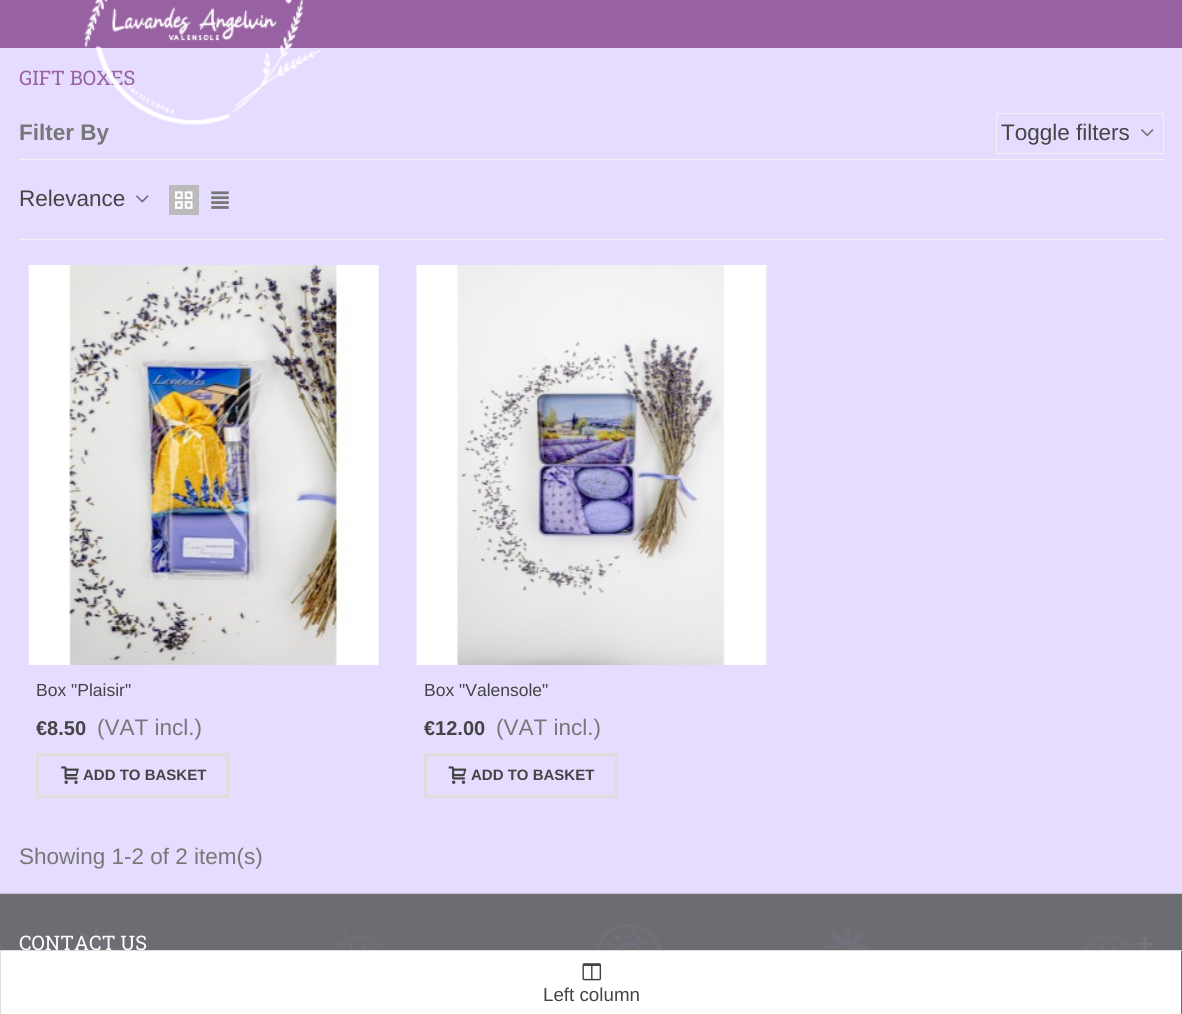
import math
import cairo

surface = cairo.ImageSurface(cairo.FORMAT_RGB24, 1182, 1014)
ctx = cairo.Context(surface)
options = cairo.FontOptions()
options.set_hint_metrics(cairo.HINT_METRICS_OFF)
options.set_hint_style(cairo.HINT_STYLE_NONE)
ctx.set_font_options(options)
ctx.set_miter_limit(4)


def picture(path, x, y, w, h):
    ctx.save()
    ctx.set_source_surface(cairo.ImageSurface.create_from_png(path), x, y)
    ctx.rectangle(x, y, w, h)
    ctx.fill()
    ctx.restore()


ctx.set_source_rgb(0.902, 0.863, 1)
ctx.paint()
ctx.set_source_rgb(0.596, 0.38, 0.635)
ctx.rectangle(0, 0, 1182, 48)
ctx.fill()
ctx.select_font_face("Roboto Slab")
ctx.set_font_size(20)
ctx.move_to(19, 85)
ctx.show_text("GIFT BOXES")
ctx.select_font_face("Liberation Sans", cairo.FONT_SLANT_NORMAL, cairo.FONT_WEIGHT_BOLD)
ctx.set_font_size(22.5)
ctx.set_source_rgb(0.467, 0.467, 0.467)
ctx.move_to(19, 140)
ctx.show_text("Filter By")
picture("img1.png", 83, 0, 238, 125)
ctx.rectangle(996.5, 113.5, 167, 40)
ctx.set_source_rgb(0.949, 0.949, 0.949)
ctx.set_line_width(1)
ctx.stroke()
ctx.select_font_face("Liberation Sans")
ctx.set_source_rgb(0.267, 0.267, 0.267)
ctx.move_to(1001, 140)
ctx.show_text("Toggle filters")
picture("img2.png", 1141, 129, 13, 8)
ctx.set_source_rgb(0.949, 0.949, 0.949)
ctx.rectangle(19, 159, 1145, 1)
ctx.fill()
ctx.rectangle(19, 239, 1145, 1)
ctx.fill()
ctx.set_source_rgb(0.267, 0.267, 0.267)
ctx.move_to(19, 206)
ctx.show_text("Relevance")
picture("img3.png", 136, 195, 13, 8)
ctx.set_source_rgb(0.733, 0.733, 0.733)
ctx.rectangle(169, 185, 30, 30)
ctx.fill()
picture("img4.png", 175, 191, 18, 18)
picture("img5.png", 211, 191, 18, 18)
picture("img6.png", 28, 265, 351, 400)
ctx.set_font_size(17.5)
ctx.set_source_rgb(0.267, 0.267, 0.267)
ctx.move_to(36, 696)
ctx.show_text("Box \"Plaisir\"")
ctx.select_font_face("Liberation Sans", cairo.FONT_SLANT_NORMAL, cairo.FONT_WEIGHT_BOLD)
ctx.set_font_size(20)
ctx.move_to(36, 735)
ctx.show_text("€8.50")
ctx.select_font_face("Liberation Sans")
ctx.set_font_size(22.5)
ctx.set_source_rgb(0.467, 0.467, 0.467)
ctx.move_to(97, 735)
ctx.show_text("(VAT incl.)")
ctx.rectangle(37.5, 754.5, 190, 42)
ctx.set_source_rgb(0.867, 0.867, 0.867)
ctx.set_line_width(3)
ctx.stroke()
picture("img7.png", 61, 766, 18, 18)
ctx.select_font_face("Liberation Sans", cairo.FONT_SLANT_NORMAL, cairo.FONT_WEIGHT_BOLD)
ctx.set_font_size(15)
ctx.set_source_rgb(0.267, 0.267, 0.267)
ctx.move_to(83, 780)
ctx.show_text("ADD TO BASKET")
picture("img8.png", 416, 265, 351, 400)
ctx.select_font_face("Liberation Sans")
ctx.set_font_size(17.5)
ctx.move_to(424, 696)
ctx.show_text("Box \"Valensole\"")
ctx.select_font_face("Liberation Sans", cairo.FONT_SLANT_NORMAL, cairo.FONT_WEIGHT_BOLD)
ctx.set_font_size(20)
ctx.move_to(424, 735)
ctx.show_text("€12.00")
ctx.select_font_face("Liberation Sans")
ctx.set_font_size(22.5)
ctx.set_source_rgb(0.467, 0.467, 0.467)
ctx.move_to(496, 735)
ctx.show_text("(VAT incl.)")
ctx.rectangle(425.5, 754.5, 191, 42)
ctx.set_source_rgb(0.867, 0.867, 0.867)
ctx.stroke()
picture("img9.png", 448, 766, 19, 18)
ctx.select_font_face("Liberation Sans", cairo.FONT_SLANT_NORMAL, cairo.FONT_WEIGHT_BOLD)
ctx.set_font_size(15)
ctx.set_source_rgb(0.267, 0.267, 0.267)
ctx.move_to(471, 780)
ctx.show_text("ADD TO BASKET")
ctx.select_font_face("Liberation Sans")
ctx.set_font_size(22.5)
ctx.set_source_rgb(0.467, 0.467, 0.467)
ctx.move_to(19, 864)
ctx.show_text("Showing 1-2 of 2 item(s)")
picture("img10.png", 0, 893, 1182, 121)
ctx.select_font_face("Roboto Slab")
ctx.set_font_size(20)
ctx.set_source_rgb(1, 1, 1)
ctx.move_to(19, 950)
ctx.show_text("CONTACT US")
picture("img11.png", 1137, 936, 15, 14)
ctx.rectangle(0.5, 950.5, 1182, 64)
ctx.set_source_rgb(0.867, 0.867, 0.867)
ctx.set_line_width(1)
ctx.stroke()
ctx.set_source_rgb(1, 1, 1)
ctx.rectangle(1, 951, 1180, 63)
ctx.fill()
picture("img12.png", 582, 963, 20, 18)
ctx.select_font_face("Liberation Sans")
ctx.set_font_size(18.75)
ctx.set_source_rgb(0.267, 0.267, 0.267)
ctx.move_to(543, 1001)
ctx.show_text("Left column")
surface.write_to_png("page.png")
